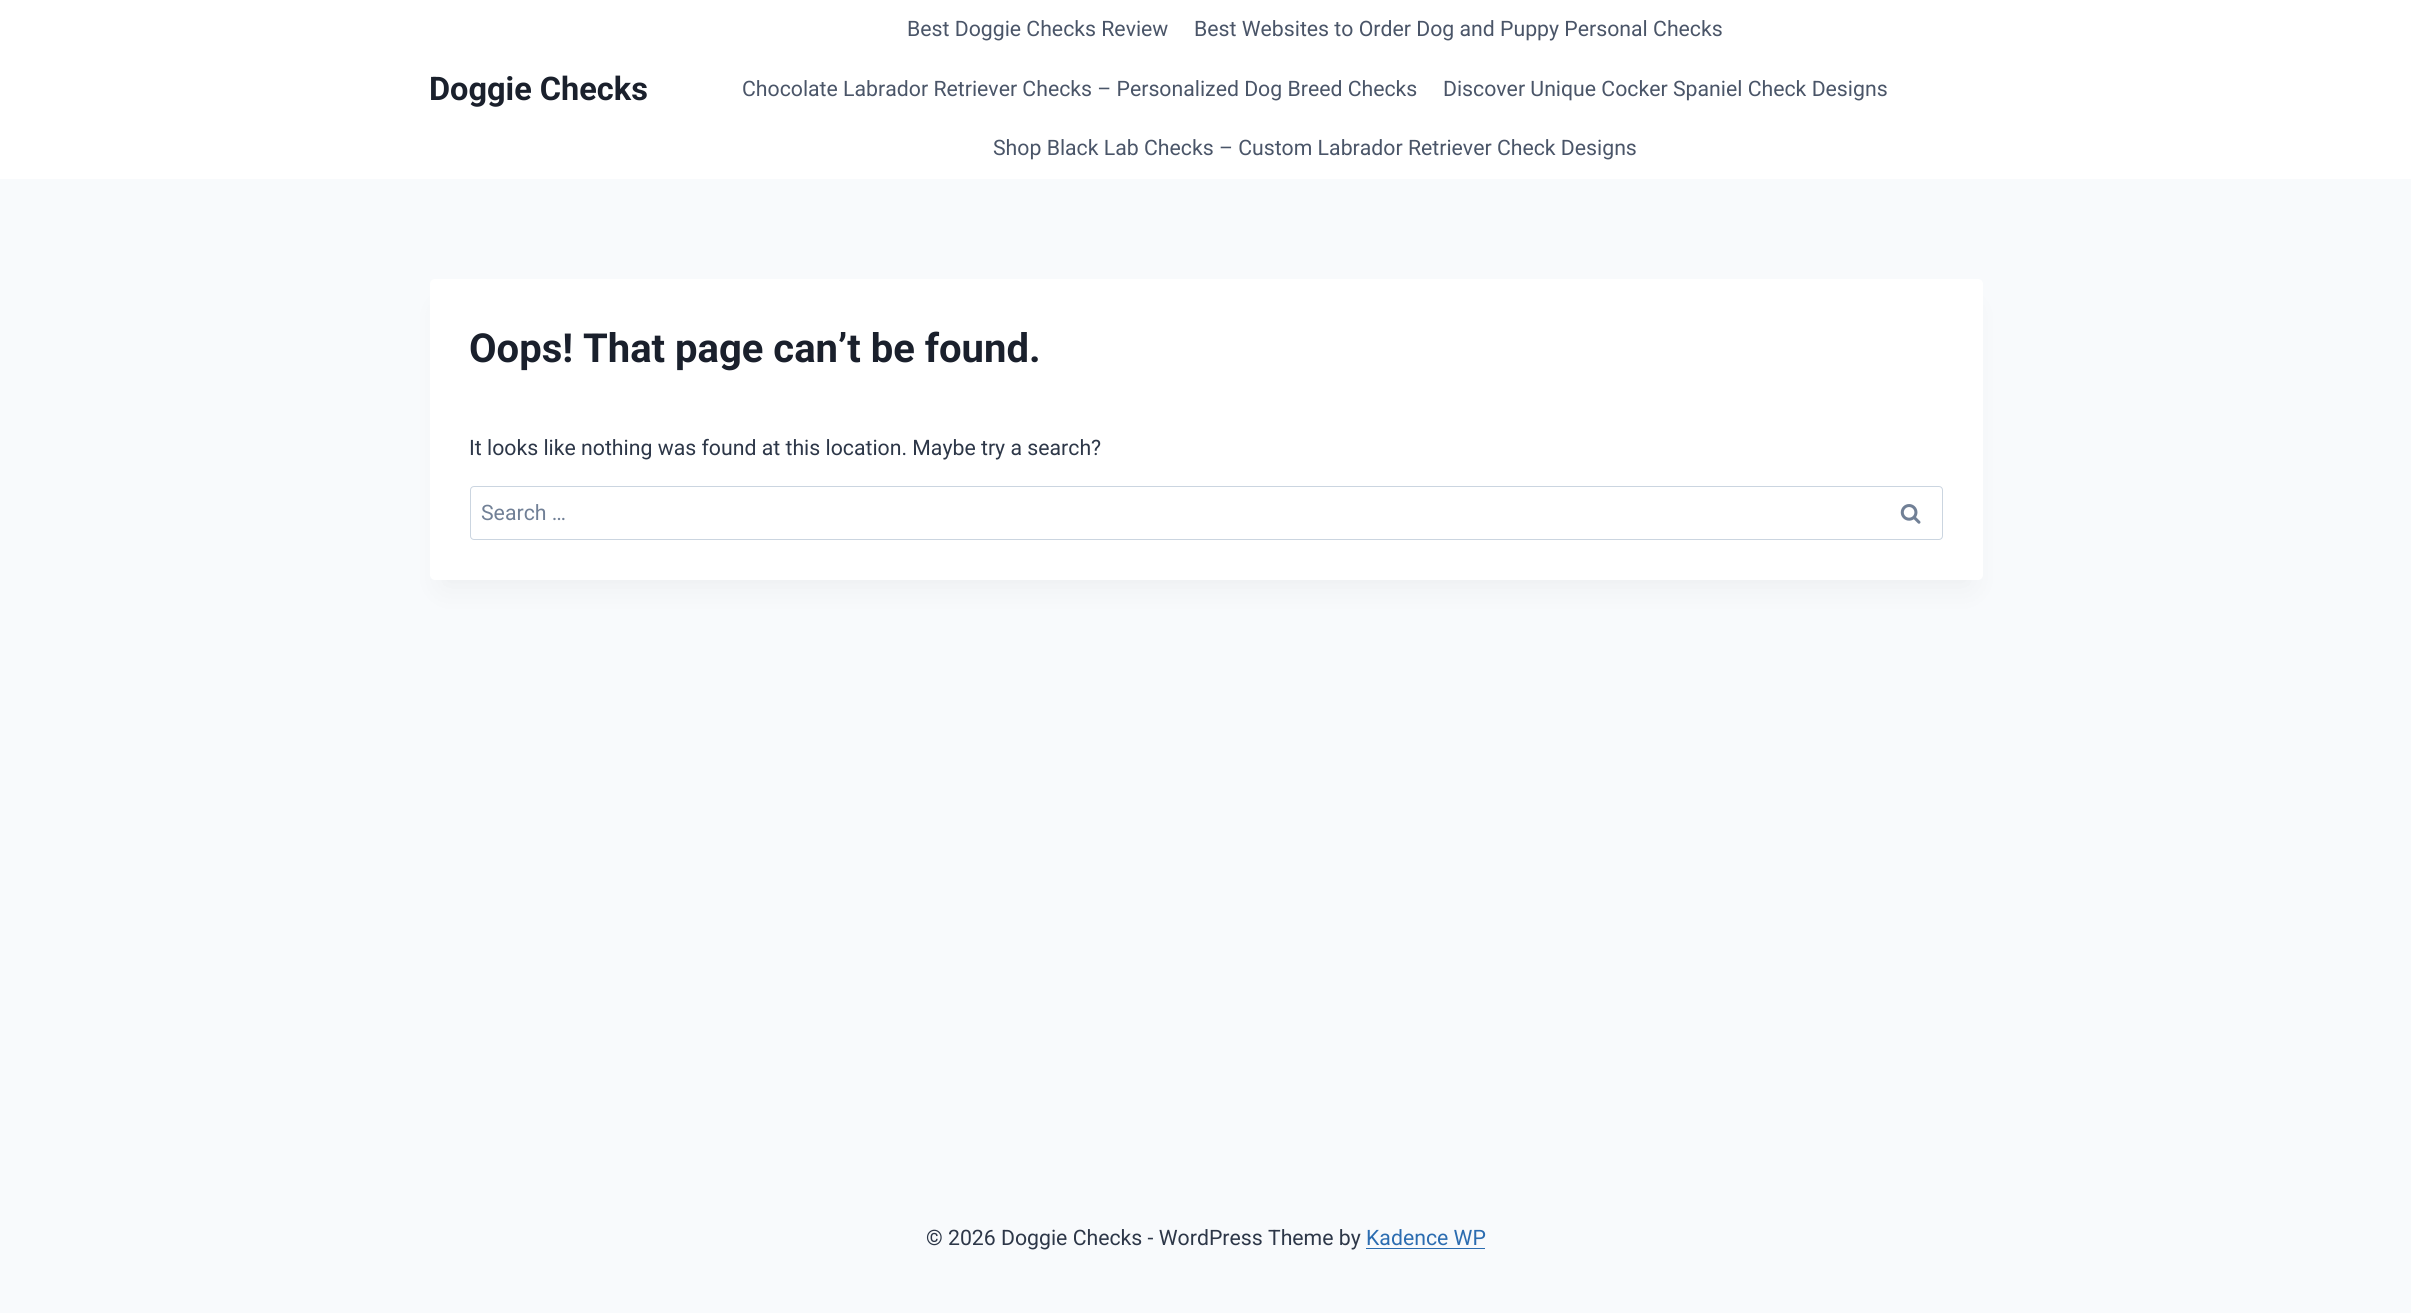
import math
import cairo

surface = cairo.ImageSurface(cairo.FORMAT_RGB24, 2411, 1313)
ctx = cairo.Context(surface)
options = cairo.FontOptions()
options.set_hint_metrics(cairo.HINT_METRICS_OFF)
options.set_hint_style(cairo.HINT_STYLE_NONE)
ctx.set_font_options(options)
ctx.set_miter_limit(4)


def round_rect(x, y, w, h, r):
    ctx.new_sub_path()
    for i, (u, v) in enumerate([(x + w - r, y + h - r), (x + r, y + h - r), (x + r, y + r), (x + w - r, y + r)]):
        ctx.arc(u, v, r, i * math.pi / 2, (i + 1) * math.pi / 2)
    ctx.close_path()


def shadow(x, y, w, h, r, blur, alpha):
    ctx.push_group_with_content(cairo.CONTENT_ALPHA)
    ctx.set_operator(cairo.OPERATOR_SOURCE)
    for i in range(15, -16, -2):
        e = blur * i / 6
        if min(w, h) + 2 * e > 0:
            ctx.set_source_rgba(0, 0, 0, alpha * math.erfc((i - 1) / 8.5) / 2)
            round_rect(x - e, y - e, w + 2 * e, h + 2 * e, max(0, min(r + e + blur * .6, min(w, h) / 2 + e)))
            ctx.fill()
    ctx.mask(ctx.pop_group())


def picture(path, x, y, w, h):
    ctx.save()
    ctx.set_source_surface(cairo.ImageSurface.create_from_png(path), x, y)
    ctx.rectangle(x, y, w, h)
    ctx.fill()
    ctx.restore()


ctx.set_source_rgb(0.969, 0.98, 0.988)
ctx.paint()
ctx.set_source_rgb(1, 1, 1)
ctx.rectangle(0, 0, 2411, 179)
ctx.fill()
ctx.select_font_face("Roboto", cairo.FONT_SLANT_NORMAL, cairo.FONT_WEIGHT_BOLD)
ctx.set_font_size(32.5)
ctx.set_source_rgb(0.102, 0.125, 0.173)
ctx.move_to(429, 100)
ctx.show_text("Doggie Checks")
ctx.select_font_face("Roboto")
ctx.set_font_size(21.25)
ctx.set_source_rgb(0.29, 0.333, 0.408)
ctx.move_to(907, 36)
ctx.show_text("Best Doggie Checks Review")
ctx.move_to(1194, 36)
ctx.show_text("Best Websites to Order Dog and Puppy Personal Checks")
ctx.move_to(742, 96)
ctx.show_text("Chocolate Labrador Retriever Checks – Personalized Dog Breed Checks")
ctx.move_to(1443, 96)
ctx.show_text("Discover Unique Cocker Spaniel Check Designs")
ctx.move_to(993, 155)
ctx.show_text("Shop Black Lab Checks – Custom Labrador Retriever Check Designs")
ctx.set_source_rgb(0, 0, 0)
shadow(443, 310, 1527, 276, 0, 15.5, 0.05)
ctx.set_source_rgb(1, 1, 1)
round_rect(430, 279, 1553, 301, 5)
ctx.fill()
ctx.select_font_face("Roboto", cairo.FONT_SLANT_NORMAL, cairo.FONT_WEIGHT_BOLD)
ctx.set_font_size(40)
ctx.set_source_rgb(0.102, 0.125, 0.173)
ctx.move_to(469, 362)
ctx.show_text("Oops! That page can’t be found.")
ctx.select_font_face("Roboto")
ctx.set_font_size(21.25)
ctx.set_source_rgb(0.176, 0.216, 0.282)
ctx.move_to(469, 455)
ctx.show_text("It looks like nothing was found at this location. Maybe try a search?")
round_rect(470.5, 486.5, 1472, 53, 3.5)
ctx.set_source_rgb(0.796, 0.835, 0.878)
ctx.set_line_width(1)
ctx.stroke()
ctx.set_source_rgb(0.443, 0.502, 0.588)
ctx.move_to(481, 520)
ctx.show_text("Search …")
picture("img1.png", 1900, 504, 21, 20)
ctx.set_source_rgb(0.176, 0.216, 0.282)
ctx.move_to(926, 1245)
ctx.show_text("© 2026 Doggie Checks - WordPress Theme by")
ctx.set_source_rgb(0.169, 0.424, 0.69)
ctx.move_to(1366, 1245)
ctx.show_text("Kadence WP")
ctx.rectangle(1366, 1248, 119, 1)
ctx.fill()
surface.write_to_png("page.png")
